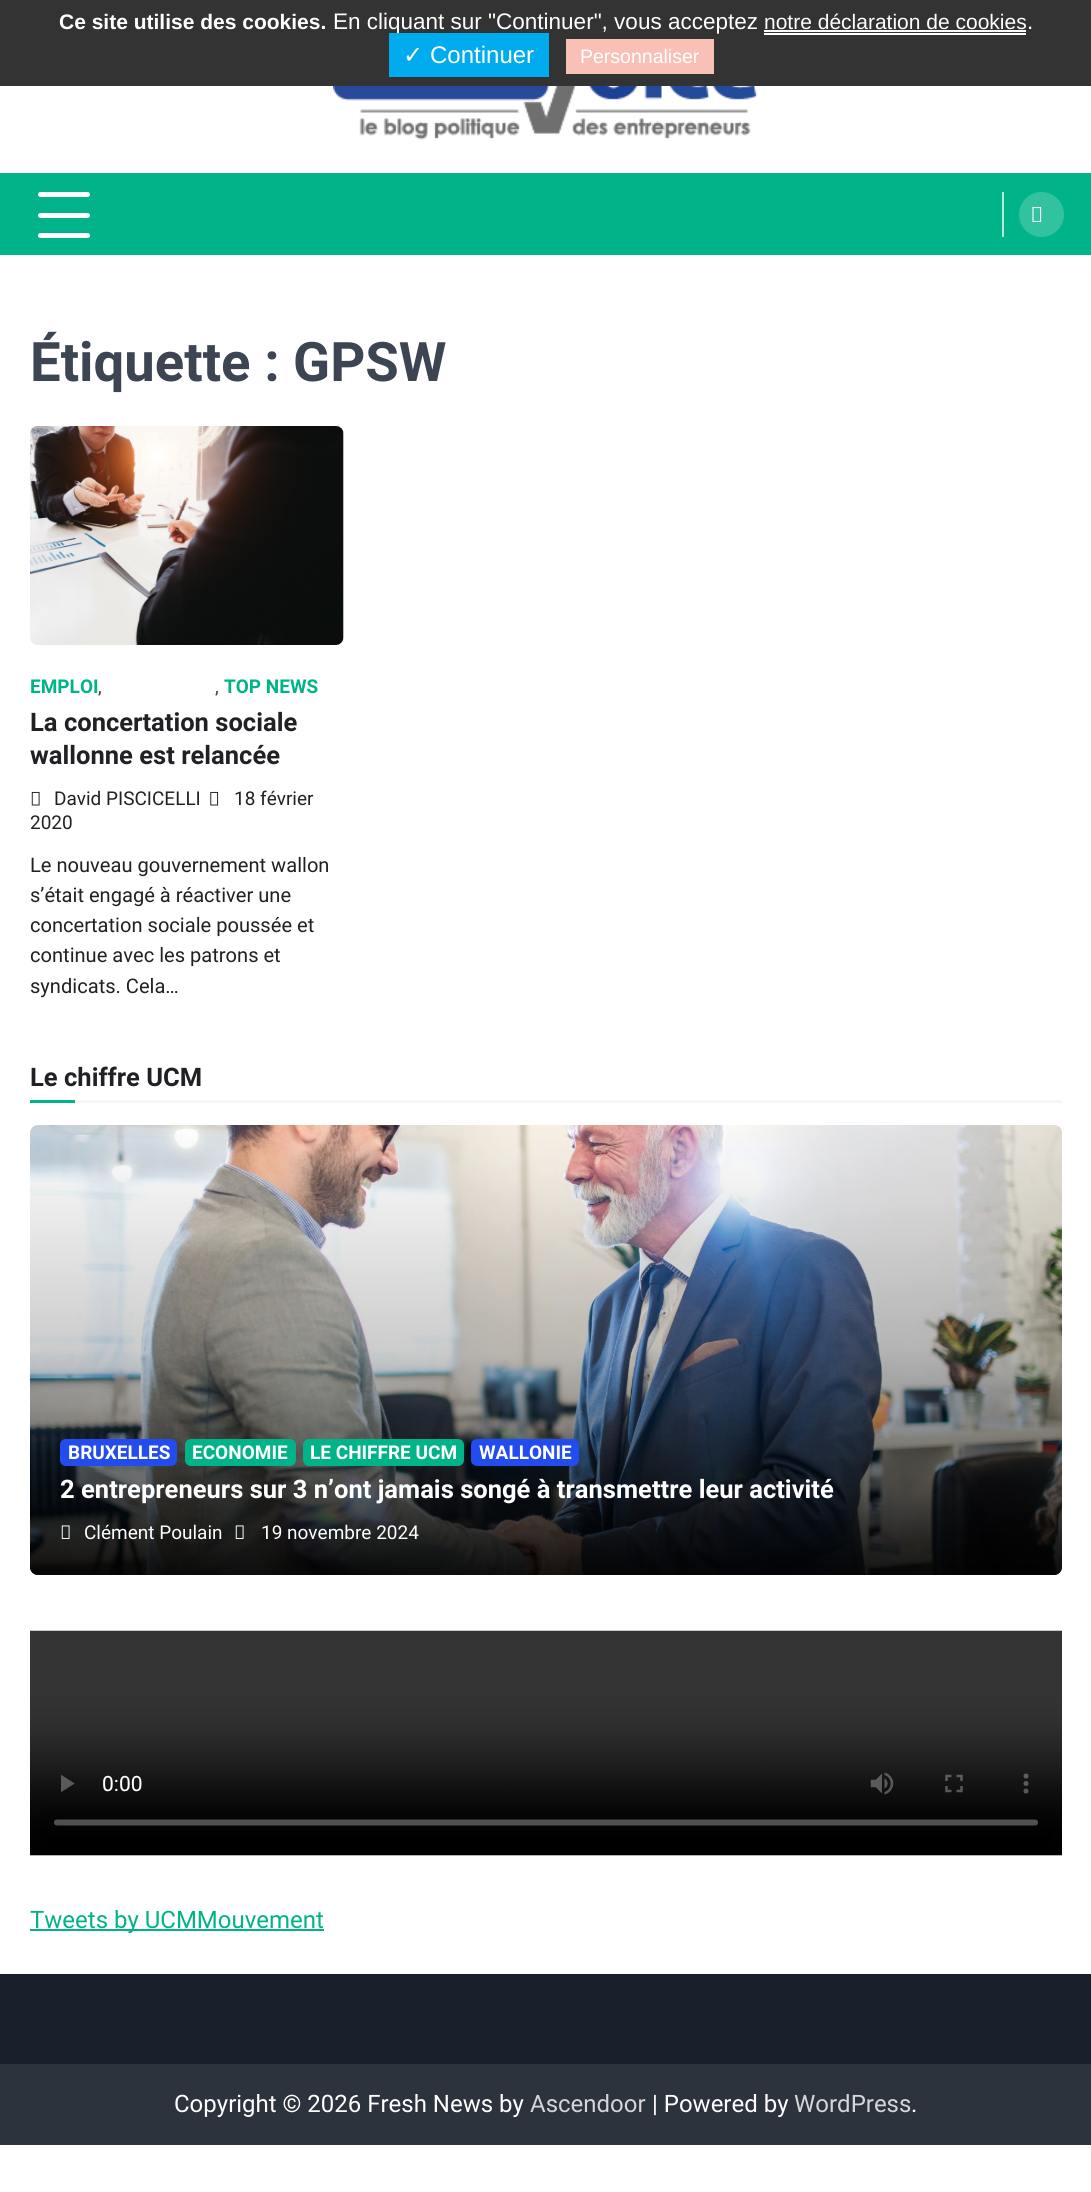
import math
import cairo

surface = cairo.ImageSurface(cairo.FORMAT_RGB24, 1091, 2192)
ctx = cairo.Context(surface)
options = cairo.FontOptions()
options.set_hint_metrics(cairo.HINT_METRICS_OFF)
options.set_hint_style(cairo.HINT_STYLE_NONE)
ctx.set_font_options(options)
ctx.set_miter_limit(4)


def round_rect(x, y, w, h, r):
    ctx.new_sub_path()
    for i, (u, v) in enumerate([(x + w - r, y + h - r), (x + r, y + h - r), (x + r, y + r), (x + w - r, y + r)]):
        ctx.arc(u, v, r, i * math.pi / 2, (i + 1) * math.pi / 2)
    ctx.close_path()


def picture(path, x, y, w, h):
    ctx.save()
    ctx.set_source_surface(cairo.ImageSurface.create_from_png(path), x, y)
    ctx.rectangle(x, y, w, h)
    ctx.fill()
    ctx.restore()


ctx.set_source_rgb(1, 1, 1)
ctx.paint()
ctx.set_source_rgb(0.2, 0.2, 0.2)
ctx.rectangle(0, 0, 1091, 86)
ctx.fill()
ctx.select_font_face("Liberation Sans", cairo.FONT_SLANT_NORMAL, cairo.FONT_WEIGHT_BOLD)
ctx.set_font_size(21)
ctx.set_source_rgb(1, 1, 1)
ctx.move_to(59, 29)
ctx.show_text("Ce site utilise des cookies.")
ctx.select_font_face("Liberation Sans")
ctx.set_font_size(22.5)
ctx.move_to(333, 29)
ctx.show_text("En cliquant sur \"Continuer\", vous acceptez")
ctx.set_font_size(21)
ctx.move_to(764, 29)
ctx.show_text("notre déclaration de cookies")
ctx.set_font_size(22.5)
ctx.move_to(1027, 29)
ctx.show_text(".")
ctx.rectangle(764, 33, 262, 2)
ctx.fill()
ctx.rectangle(764, 30, 262, 2)
ctx.fill()
ctx.set_source_rgb(0, 0.675, 0.929)
ctx.rectangle(389, 33, 160, 44)
ctx.fill()
ctx.select_font_face("DejaVu Sans")
ctx.set_font_size(24)
ctx.set_source_rgb(1, 1, 1)
ctx.move_to(403, 63)
ctx.show_text("✓")
ctx.select_font_face("Liberation Sans")
ctx.move_to(430, 63)
ctx.show_text("Continuer")
ctx.set_source_rgb(0.973, 0.757, 0.714)
ctx.rectangle(566, 39, 148, 35)
ctx.fill()
ctx.set_font_size(19.5)
ctx.set_source_rgb(1, 1, 1)
ctx.move_to(580, 63)
ctx.show_text("Personnaliser")
picture("img1.png", 333, 86, 424, 54)
ctx.set_source_rgb(0, 0.702, 0.533)
ctx.rectangle(0, 173, 1091, 82)
ctx.fill()
ctx.set_source_rgb(1, 1, 1)
round_rect(38, 192, 52, 5, 2.5)
ctx.fill()
round_rect(38, 213, 52, 5, 2.5)
ctx.fill()
round_rect(38, 233, 52, 5, 2.5)
ctx.fill()
ctx.set_source_rgb(0.702, 0.91, 0.859)
ctx.rectangle(1002, 192, 2, 45)
ctx.fill()
ctx.set_source_rgb(0.2, 0.761, 0.627)
ctx.arc(1041.5, 214.5, 22.5, 0, 2 * math.pi)
ctx.fill()
picture("img2.png", 1032, 207, 10, 15)
ctx.select_font_face("Roboto", cairo.FONT_SLANT_NORMAL, cairo.FONT_WEIGHT_BOLD)
ctx.set_font_size(54.5)
ctx.set_source_rgb(0.239, 0.267, 0.322)
ctx.move_to(30, 381)
ctx.show_text("Étiquette : GPSW")
ctx.set_source_rgb(0.941, 0.949, 0.969)
round_rect(30, 426, 314, 219, 8)
ctx.fill()
picture("img3.png", 30, 426, 314, 219)
ctx.set_font_size(19)
ctx.set_source_rgb(0, 0.702, 0.533)
ctx.move_to(30, 693)
ctx.show_text("EMPLOI")
ctx.select_font_face("Roboto")
ctx.set_source_rgb(0.239, 0.267, 0.322)
ctx.move_to(98, 693)
ctx.show_text(",")
ctx.move_to(215, 693)
ctx.show_text(",")
ctx.select_font_face("Roboto", cairo.FONT_SLANT_NORMAL, cairo.FONT_WEIGHT_BOLD)
ctx.set_source_rgb(0, 0.702, 0.533)
ctx.move_to(224, 693)
ctx.show_text("TOP NEWS")
ctx.set_font_size(25.55)
ctx.set_source_rgb(0.125, 0.129, 0.141)
ctx.move_to(30, 731)
ctx.show_text("La concertation sociale")
ctx.move_to(30, 764)
ctx.show_text("wallonne est relancée")
picture("img4.png", 210, 791, 9, 15)
ctx.select_font_face("Roboto")
ctx.set_font_size(19)
ctx.move_to(234, 805)
ctx.show_text("18 février")
ctx.move_to(30, 829)
ctx.show_text("2020")
picture("img5.png", 31, 791, 9, 15)
ctx.move_to(54, 805)
ctx.show_text("David PISCICELLI")
ctx.set_font_size(20.1)
ctx.move_to(30, 872)
ctx.show_text("Le nouveau gouvernement wallon")
ctx.move_to(30, 902)
ctx.show_text("s’était engagé à réactiver une")
ctx.move_to(30, 932)
ctx.show_text("concertation sociale poussée et")
ctx.move_to(30, 962)
ctx.show_text("continue avec les patrons et")
ctx.move_to(30, 993)
ctx.show_text("syndicats. Cela…")
ctx.set_source_rgb(0.961, 0.961, 0.961)
ctx.rectangle(75, 1100, 987, 3)
ctx.fill()
ctx.select_font_face("Roboto", cairo.FONT_SLANT_NORMAL, cairo.FONT_WEIGHT_BOLD)
ctx.set_font_size(25.55)
ctx.set_source_rgb(0.125, 0.129, 0.141)
ctx.move_to(30, 1086)
ctx.show_text("Le chiffre UCM")
ctx.set_source_rgb(0, 0.702, 0.533)
ctx.rectangle(30, 1100, 45, 3)
ctx.fill()
ctx.set_source_rgb(0.941, 0.949, 0.969)
round_rect(30, 1125, 1032, 450, 8)
ctx.fill()
picture("img6.png", 30, 1125, 1032, 450)
gradient = cairo.LinearGradient(546, 1575, 546, 1125)
gradient.add_color_stop_rgba(0, 0, 0, 0, 0.7)
gradient.add_color_stop_rgba(0.5, 0, 0, 0, 0.2)
gradient.add_color_stop_rgba(1, 0, 0, 0, 0)
ctx.set_source(gradient)
round_rect(30, 1125, 1032, 450, 8)
ctx.fill()
gradient = cairo.LinearGradient(546, 1575, 546, 1409)
gradient.add_color_stop_rgba(0, 0, 0, 0, 0.7)
gradient.add_color_stop_rgba(0.5, 0, 0, 0, 0.2)
gradient.add_color_stop_rgba(1, 0, 0, 0, 0)
ctx.set_source(gradient)
ctx.new_path()
ctx.move_to(30, 1409)
ctx.line_to(1062, 1409)
ctx.line_to(1062, 1567)
ctx.curve_to(1062, 1571.5, 1058.5, 1575, 1054, 1575)
ctx.line_to(38, 1575)
ctx.curve_to(33.5, 1575, 30, 1571.5, 30, 1567)
ctx.close_path()
ctx.fill()
ctx.set_source_rgb(0.137, 0.298, 0.937)
round_rect(60, 1439, 117, 27, 6)
ctx.fill()
ctx.set_font_size(19)
ctx.set_source_rgb(1, 1, 1)
ctx.move_to(68, 1459)
ctx.show_text("BRUXELLES")
ctx.set_source_rgb(0, 0.702, 0.533)
round_rect(185, 1439, 111, 27, 6)
ctx.fill()
ctx.set_source_rgb(1, 1, 1)
ctx.move_to(192, 1459)
ctx.show_text("ECONOMIE")
ctx.set_source_rgb(0, 0.702, 0.533)
round_rect(303, 1439, 161, 27, 6)
ctx.fill()
ctx.set_source_rgb(1, 1, 1)
ctx.move_to(310, 1459)
ctx.show_text("LE CHIFFRE UCM")
ctx.set_source_rgb(0.137, 0.298, 0.937)
round_rect(471, 1439, 108, 27, 6)
ctx.fill()
ctx.set_source_rgb(1, 1, 1)
ctx.move_to(479, 1459)
ctx.show_text("WALLONIE")
ctx.set_font_size(25.55)
ctx.move_to(60, 1498)
ctx.show_text("2 entrepreneurs sur 3 n’ont jamais songé à transmettre leur activité")
picture("img7.png", 61, 1525, 9, 14)
ctx.select_font_face("Roboto")
ctx.set_font_size(19)
ctx.move_to(84, 1539)
ctx.show_text("Clément Poulain")
picture("img8.png", 235, 1525, 9, 14)
ctx.move_to(261, 1539)
ctx.show_text("19 novembre 2024")
picture("img9.png", 30, 1630, 1032, 226)
ctx.set_source_rgb(0, 0.702, 0.533)
ctx.rectangle(30, 1929, 294, 2)
ctx.fill()
ctx.set_font_size(24)
ctx.move_to(30, 1928)
ctx.show_text("Tweets by UCMMouvement")
ctx.set_source_rgb(0.102, 0.125, 0.169)
ctx.rectangle(0, 1974, 1091, 90)
ctx.fill()
ctx.set_source_rgb(0.176, 0.2, 0.235)
ctx.rectangle(0, 2064, 1091, 81)
ctx.fill()
ctx.set_source_rgb(1, 1, 1)
ctx.move_to(174, 2112)
ctx.show_text("Copyright © 2026 Fresh News by")
ctx.set_source_rgb(0.835, 0.839, 0.847)
ctx.move_to(530, 2112)
ctx.show_text("Ascendoor")
ctx.set_source_rgb(1, 1, 1)
ctx.move_to(652, 2112)
ctx.show_text("| Powered by")
ctx.set_source_rgb(0.835, 0.839, 0.847)
ctx.move_to(794, 2112)
ctx.show_text("WordPress")
ctx.set_source_rgb(1, 1, 1)
ctx.move_to(911, 2112)
ctx.show_text(".")
surface.write_to_png("page.png")
